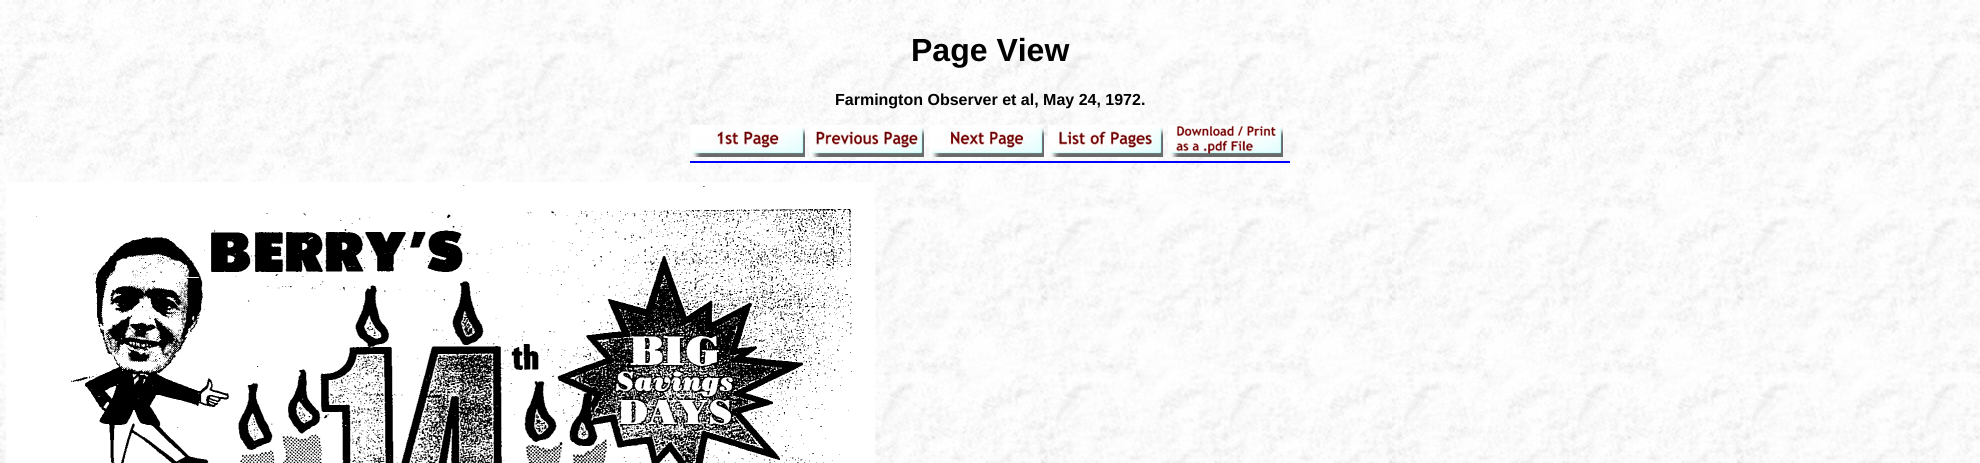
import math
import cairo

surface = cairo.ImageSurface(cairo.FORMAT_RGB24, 1980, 463)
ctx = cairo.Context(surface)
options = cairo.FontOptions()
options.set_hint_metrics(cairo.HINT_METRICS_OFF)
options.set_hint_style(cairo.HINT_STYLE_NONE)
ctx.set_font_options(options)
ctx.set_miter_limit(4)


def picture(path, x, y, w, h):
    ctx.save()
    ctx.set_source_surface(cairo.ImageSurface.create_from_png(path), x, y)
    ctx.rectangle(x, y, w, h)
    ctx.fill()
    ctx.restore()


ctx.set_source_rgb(1, 1, 1)
ctx.paint()
picture("img1.png", 0, 0, 1980, 463)
ctx.select_font_face("Liberation Sans", cairo.FONT_SLANT_NORMAL, cairo.FONT_WEIGHT_BOLD)
ctx.set_font_size(32)
ctx.set_source_rgb(0, 0, 0)
ctx.move_to(911, 61)
ctx.show_text("Page View")
ctx.set_font_size(16)
ctx.move_to(835, 105)
ctx.show_text("Farmington Observer et al, May 24, 1972.")
picture("img2.png", 690, 125, 115, 32)
picture("img3.png", 809, 125, 115, 32)
picture("img4.png", 929, 125, 115, 32)
picture("img5.png", 1048, 125, 115, 32)
picture("img6.png", 1168, 125, 115, 32)
ctx.set_source_rgb(0, 0, 1)
ctx.rectangle(690, 161, 600, 2)
ctx.fill()
picture("img7.png", 6, 182, 869, 281)
surface.write_to_png("page.png")
